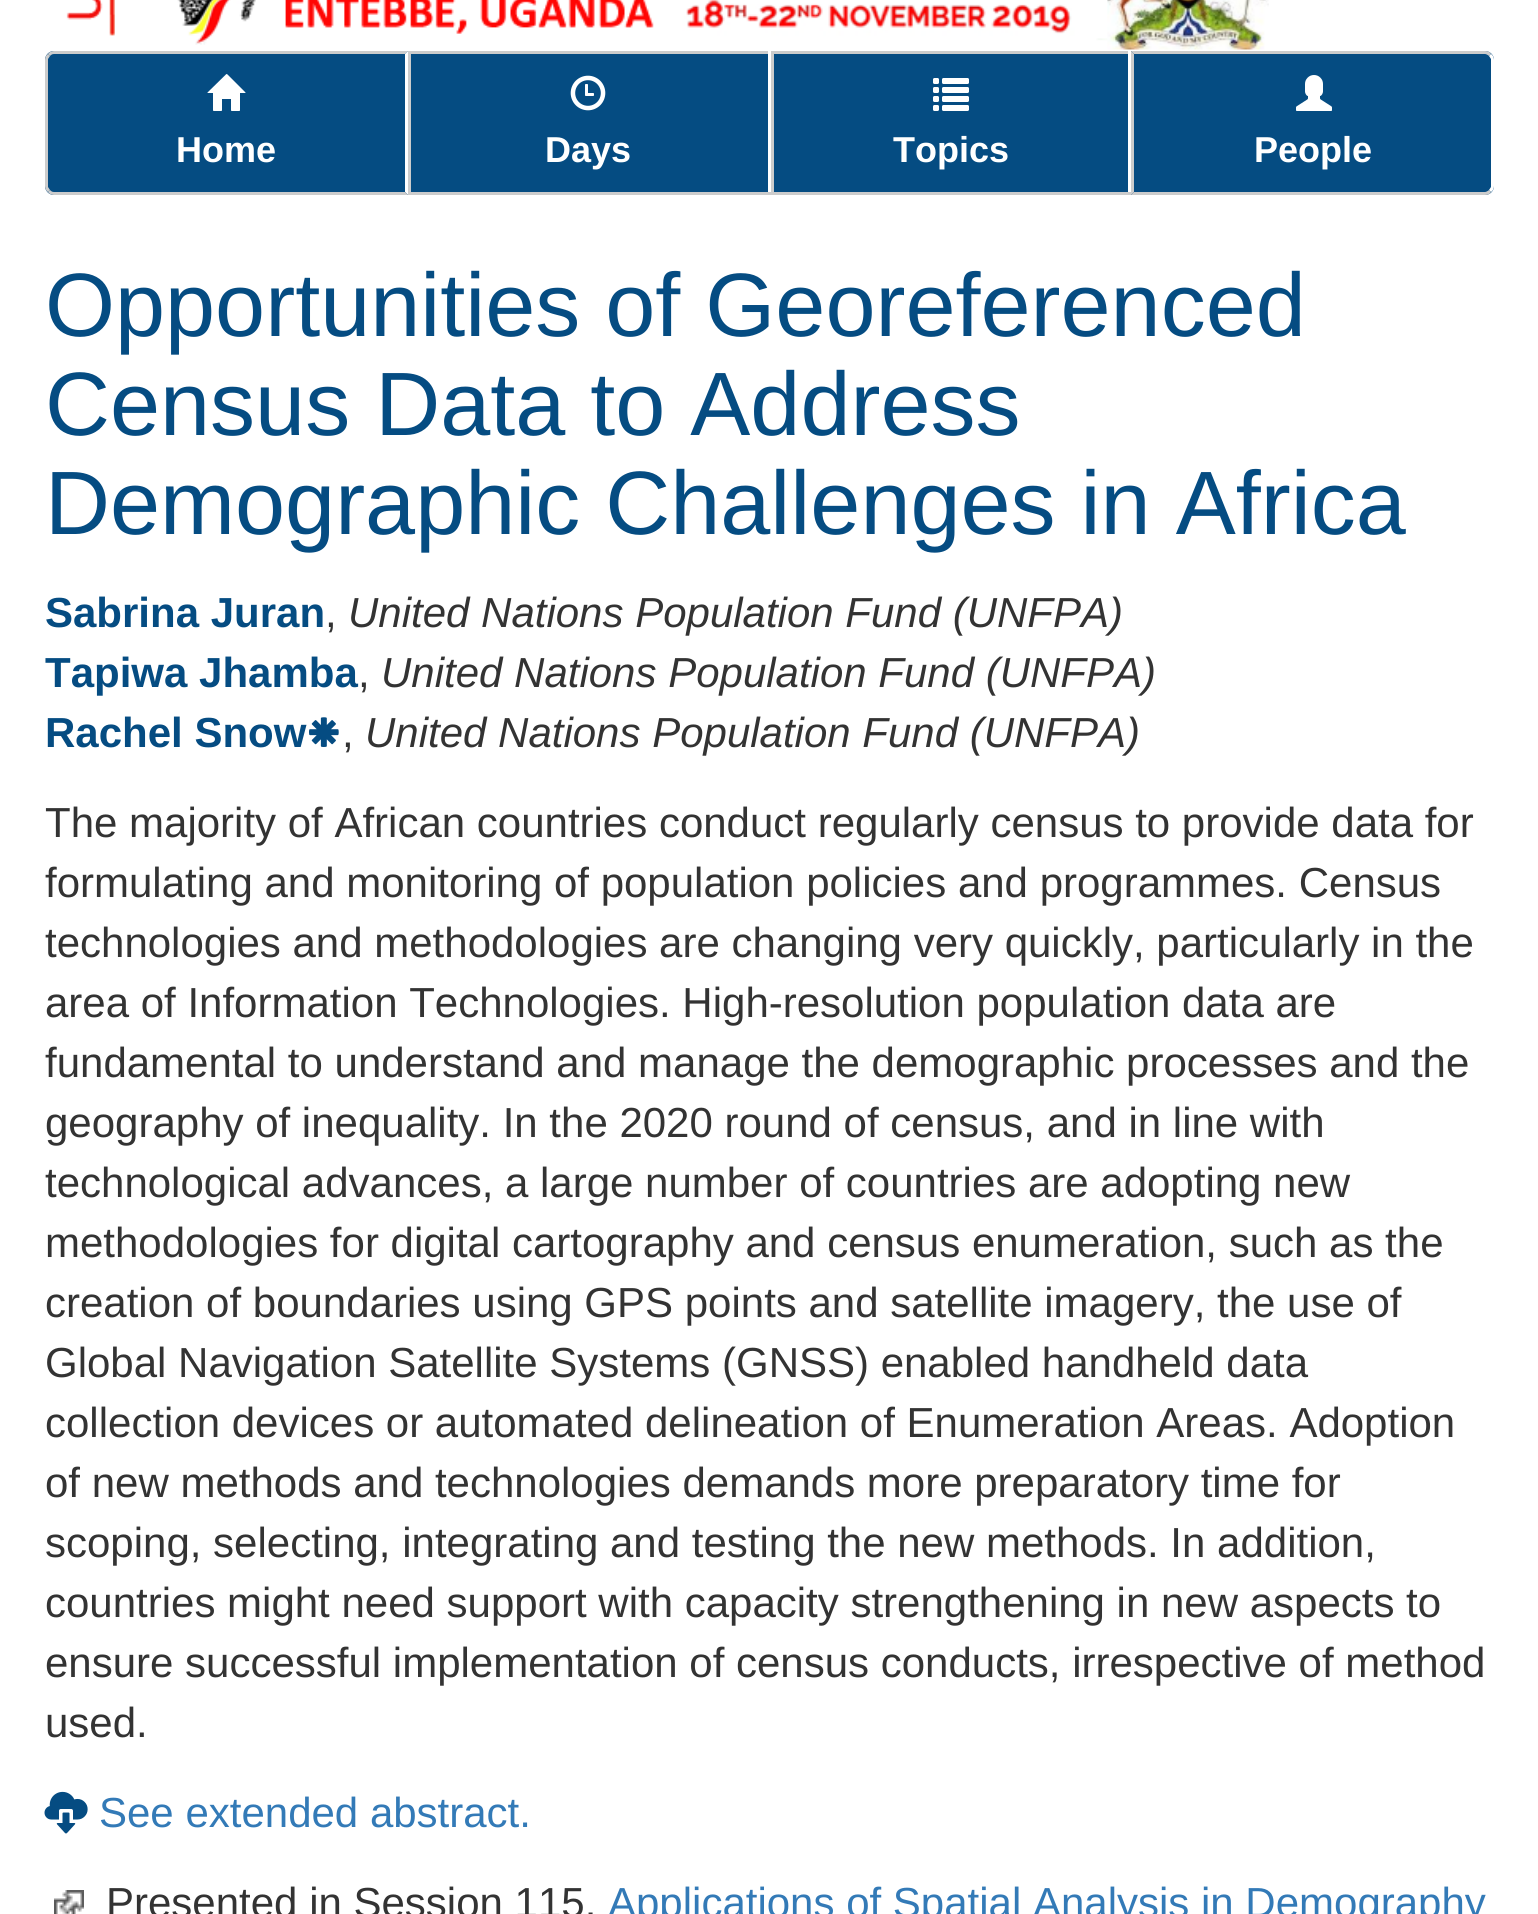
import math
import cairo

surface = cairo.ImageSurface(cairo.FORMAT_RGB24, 1538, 1914)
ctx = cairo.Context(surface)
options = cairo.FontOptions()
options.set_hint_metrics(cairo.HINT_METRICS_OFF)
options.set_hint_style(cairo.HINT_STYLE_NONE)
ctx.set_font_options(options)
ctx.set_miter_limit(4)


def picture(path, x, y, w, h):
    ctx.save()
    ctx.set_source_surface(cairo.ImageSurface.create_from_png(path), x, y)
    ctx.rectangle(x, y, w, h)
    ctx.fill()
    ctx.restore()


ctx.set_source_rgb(1, 1, 1)
ctx.paint()
picture("img1.png", 66, 0, 1203, 50)
ctx.set_source_rgb(0.02, 0.298, 0.51)
ctx.new_path()
ctx.move_to(54, 51)
ctx.line_to(408, 51)
ctx.line_to(408, 195)
ctx.line_to(54, 195)
ctx.curve_to(49, 195, 45, 191, 45, 186)
ctx.line_to(45, 60)
ctx.curve_to(45, 55, 49, 51, 54, 51)
ctx.close_path()
ctx.fill()
ctx.set_source_rgb(0.8, 0.8, 0.8)
ctx.new_path()
ctx.move_to(54, 51)
ctx.curve_to(52, 51, 49, 52, 48, 54)
ctx.line_to(50, 56)
ctx.curve_to(51, 55, 52, 54, 54, 54)
ctx.line_to(405, 54)
ctx.line_to(408, 51)
ctx.close_path()
ctx.fill()
ctx.set_source_rgb(1, 1, 1)
ctx.new_path()
ctx.move_to(408, 51)
ctx.line_to(405, 54)
ctx.line_to(405, 192)
ctx.line_to(408, 195)
ctx.close_path()
ctx.fill()
ctx.set_source_rgb(0.8, 0.8, 0.8)
ctx.new_path()
ctx.move_to(408, 195)
ctx.line_to(405, 192)
ctx.line_to(54, 192)
ctx.curve_to(52, 192, 51, 191, 50, 190)
ctx.line_to(48, 192)
ctx.curve_to(49, 194, 52, 195, 54, 195)
ctx.close_path()
ctx.fill()
ctx.new_path()
ctx.move_to(45, 60)
ctx.line_to(45, 186)
ctx.curve_to(45, 188, 46, 191, 48, 192)
ctx.line_to(50, 190)
ctx.line_to(48, 187)
ctx.line_to(48, 59)
ctx.line_to(50, 56)
ctx.line_to(48, 54)
ctx.curve_to(46, 55, 45, 58, 45, 60)
ctx.close_path()
ctx.fill()
picture("img2.png", 207, 74, 39, 37)
ctx.select_font_face("Liberation Sans", cairo.FONT_SLANT_NORMAL, cairo.FONT_WEIGHT_BOLD)
ctx.set_font_size(36)
ctx.set_source_rgb(1, 1, 1)
ctx.move_to(176, 162)
ctx.show_text("Home")
ctx.set_source_rgb(0.02, 0.298, 0.51)
ctx.rectangle(411, 54, 357, 138)
ctx.fill()
ctx.set_source_rgb(0.8, 0.8, 0.8)
ctx.rectangle(408, 51, 723, 3)
ctx.fill()
ctx.set_source_rgb(1, 1, 1)
ctx.rectangle(768, 51, 3, 3)
ctx.fill()
ctx.set_source_rgb(0.8, 0.8, 0.8)
ctx.rectangle(408, 192, 723, 3)
ctx.fill()
ctx.rectangle(408, 51, 3, 144)
ctx.fill()
picture("img3.png", 570, 75, 36, 36)
ctx.set_source_rgb(1, 1, 1)
ctx.move_to(545, 162)
ctx.show_text("Days")
ctx.set_source_rgb(0.02, 0.298, 0.51)
ctx.rectangle(774, 54, 354, 138)
ctx.fill()
ctx.set_source_rgb(1, 1, 1)
ctx.rectangle(1128, 51, 3, 3)
ctx.fill()
ctx.set_source_rgb(0.8, 0.8, 0.8)
ctx.rectangle(771, 51, 3, 144)
ctx.fill()
picture("img4.png", 933, 78, 36, 33)
ctx.set_source_rgb(1, 1, 1)
ctx.move_to(893, 162)
ctx.show_text("Topics")
ctx.set_source_rgb(0.02, 0.298, 0.51)
ctx.new_path()
ctx.move_to(1131, 51)
ctx.line_to(1485, 51)
ctx.curve_to(1490, 51, 1494, 55, 1494, 60)
ctx.line_to(1494, 186)
ctx.curve_to(1494, 191, 1490, 195, 1485, 195)
ctx.line_to(1131, 195)
ctx.close_path()
ctx.fill()
ctx.set_source_rgb(0.8, 0.8, 0.8)
ctx.new_path()
ctx.move_to(1131, 51)
ctx.line_to(1134, 54)
ctx.line_to(1485, 54)
ctx.curve_to(1486, 54, 1488, 55, 1489, 56)
ctx.line_to(1491, 54)
ctx.curve_to(1490, 52, 1488, 51, 1485, 51)
ctx.close_path()
ctx.fill()
ctx.set_source_rgb(1, 1, 1)
ctx.new_path()
ctx.move_to(1494, 186)
ctx.line_to(1494, 60)
ctx.curve_to(1494, 58, 1493, 55, 1491, 54)
ctx.line_to(1489, 56)
ctx.line_to(1491, 59)
ctx.line_to(1491, 187)
ctx.line_to(1489, 190)
ctx.line_to(1491, 192)
ctx.curve_to(1493, 191, 1494, 188, 1494, 186)
ctx.close_path()
ctx.fill()
ctx.set_source_rgb(0.8, 0.8, 0.8)
ctx.new_path()
ctx.move_to(1485, 195)
ctx.curve_to(1488, 195, 1490, 194, 1491, 192)
ctx.line_to(1489, 190)
ctx.curve_to(1488, 191, 1486, 192, 1485, 192)
ctx.line_to(1134, 192)
ctx.line_to(1131, 195)
ctx.close_path()
ctx.fill()
ctx.new_path()
ctx.move_to(1131, 51)
ctx.line_to(1131, 195)
ctx.line_to(1134, 192)
ctx.line_to(1134, 54)
ctx.close_path()
ctx.fill()
picture("img5.png", 1296, 75, 36, 36)
ctx.set_source_rgb(1, 1, 1)
ctx.move_to(1254, 162)
ctx.show_text("People")
ctx.select_font_face("Liberation Sans")
ctx.set_font_size(90)
ctx.set_source_rgb(0.02, 0.298, 0.51)
ctx.move_to(45, 336)
ctx.show_text("Opportunities of Georeferenced")
ctx.move_to(45, 435)
ctx.show_text("Census Data to Address")
ctx.move_to(45, 534)
ctx.show_text("Demographic Challenges in Africa")
ctx.select_font_face("Liberation Sans", cairo.FONT_SLANT_NORMAL, cairo.FONT_WEIGHT_BOLD)
ctx.set_font_size(42)
ctx.move_to(45, 627)
ctx.show_text("Sabrina Juran")
ctx.select_font_face("Liberation Sans")
ctx.set_source_rgb(0.2, 0.2, 0.2)
ctx.move_to(325, 627)
ctx.show_text(",")
ctx.select_font_face("Liberation Sans", cairo.FONT_SLANT_ITALIC)
ctx.move_to(348, 627)
ctx.show_text("United Nations Population Fund (UNFPA)")
ctx.select_font_face("Liberation Sans", cairo.FONT_SLANT_NORMAL, cairo.FONT_WEIGHT_BOLD)
ctx.set_source_rgb(0.02, 0.298, 0.51)
ctx.move_to(45, 687)
ctx.show_text("Tapiwa Jhamba")
ctx.select_font_face("Liberation Sans")
ctx.set_source_rgb(0.2, 0.2, 0.2)
ctx.move_to(358, 687)
ctx.show_text(",")
ctx.select_font_face("Liberation Sans", cairo.FONT_SLANT_ITALIC)
ctx.move_to(381, 687)
ctx.show_text("United Nations Population Fund (UNFPA)")
ctx.select_font_face("Liberation Sans", cairo.FONT_SLANT_NORMAL, cairo.FONT_WEIGHT_BOLD)
ctx.set_source_rgb(0.02, 0.298, 0.51)
ctx.move_to(45, 747)
ctx.show_text("Rachel Snow")
picture("img6.png", 309, 717, 30, 30)
ctx.select_font_face("Liberation Sans")
ctx.set_source_rgb(0.2, 0.2, 0.2)
ctx.move_to(342, 747)
ctx.show_text(",")
ctx.select_font_face("Liberation Sans", cairo.FONT_SLANT_ITALIC)
ctx.move_to(365, 747)
ctx.show_text("United Nations Population Fund (UNFPA)")
ctx.select_font_face("Liberation Sans")
ctx.move_to(45, 837)
ctx.show_text("The majority of African countries conduct regularly census to provide data for")
ctx.move_to(45, 897)
ctx.show_text("formulating and monitoring of population policies and programmes. Census")
ctx.move_to(45, 957)
ctx.show_text("technologies and methodologies are changing very quickly, particularly in the")
ctx.move_to(45, 1017)
ctx.show_text("area of Information Technologies. High-resolution population data are")
ctx.move_to(45, 1077)
ctx.show_text("fundamental to understand and manage the demographic processes and the")
ctx.move_to(45, 1137)
ctx.show_text("geography of inequality. In the 2020 round of census, and in line with")
ctx.move_to(45, 1197)
ctx.show_text("technological advances, a large number of countries are adopting new")
ctx.move_to(45, 1257)
ctx.show_text("methodologies for digital cartography and census enumeration, such as the")
ctx.move_to(45, 1317)
ctx.show_text("creation of boundaries using GPS points and satellite imagery, the use of")
ctx.move_to(45, 1377)
ctx.show_text("Global Navigation Satellite Systems (GNSS) enabled handheld data")
ctx.move_to(45, 1437)
ctx.show_text("collection devices or automated delineation of Enumeration Areas. Adoption")
ctx.move_to(45, 1497)
ctx.show_text("of new methods and technologies demands more preparatory time for")
ctx.move_to(45, 1557)
ctx.show_text("scoping, selecting, integrating and testing the new methods. In addition,")
ctx.move_to(45, 1617)
ctx.show_text("countries might need support with capacity strengthening in new aspects to")
ctx.move_to(45, 1677)
ctx.show_text("ensure successful implementation of census conducts, irrespective of method")
ctx.move_to(45, 1737)
ctx.show_text("used.")
picture("img7.png", 44, 1791, 44, 43)
ctx.set_source_rgb(0.2, 0.478, 0.718)
ctx.move_to(99, 1827)
ctx.show_text("See extended abstract.")
picture("img8.png", 54, 1890, 30, 24)
ctx.set_source_rgb(0.2, 0.2, 0.2)
ctx.move_to(106, 1917)
ctx.show_text("Presented in Session 115.")
ctx.set_source_rgb(0.2, 0.478, 0.718)
ctx.move_to(608, 1917)
ctx.show_text("Applications of Spatial Analysis in Demography")
surface.write_to_png("page.png")
